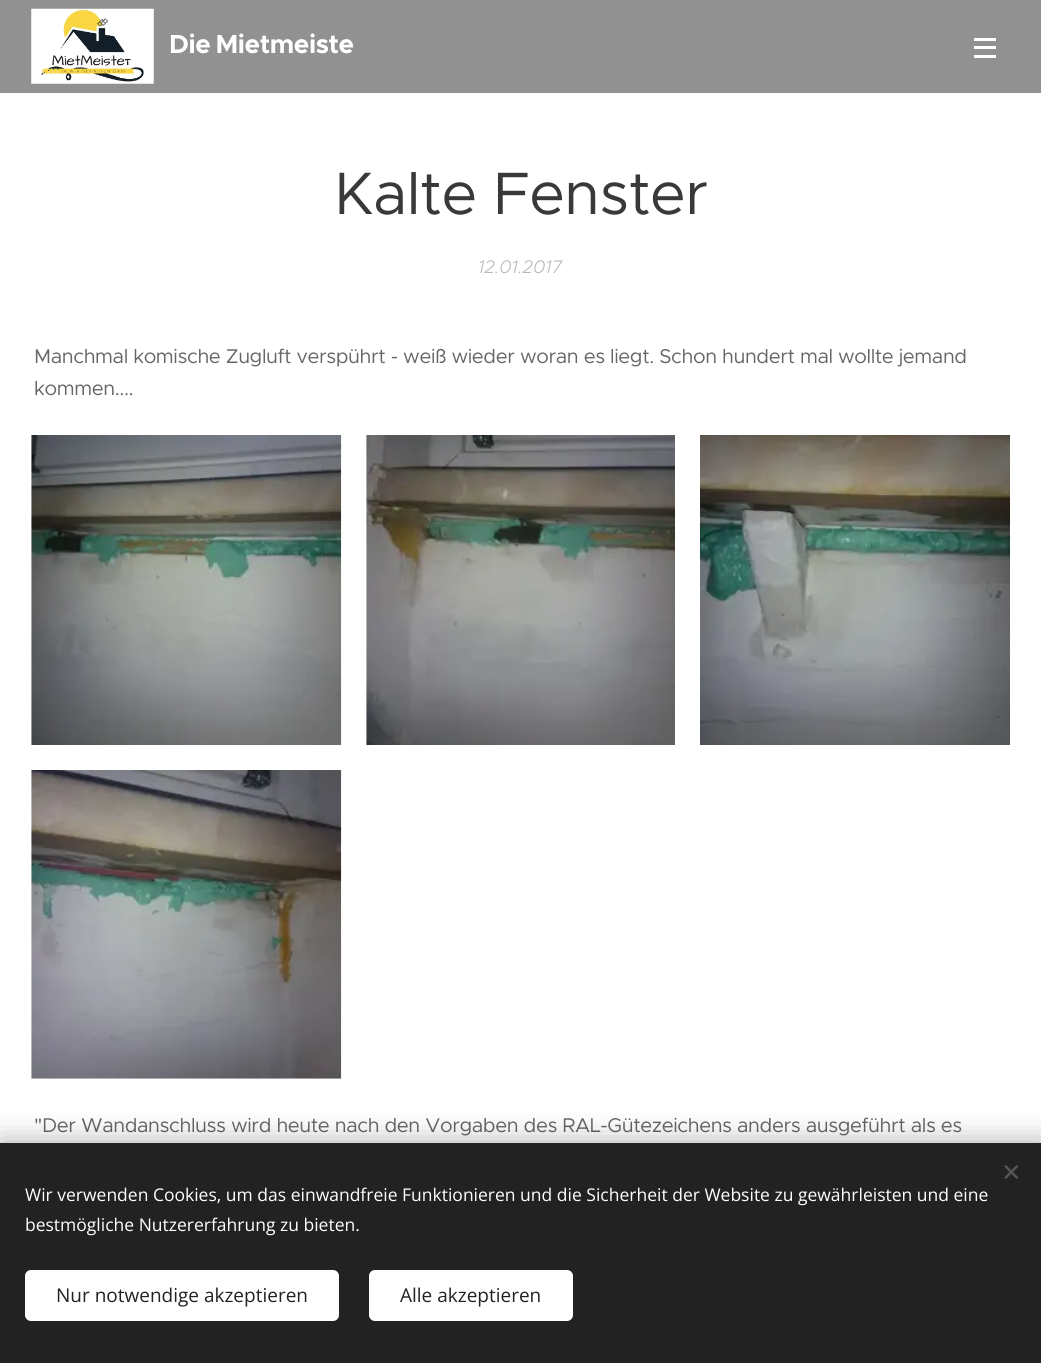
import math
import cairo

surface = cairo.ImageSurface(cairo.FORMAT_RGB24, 1041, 1363)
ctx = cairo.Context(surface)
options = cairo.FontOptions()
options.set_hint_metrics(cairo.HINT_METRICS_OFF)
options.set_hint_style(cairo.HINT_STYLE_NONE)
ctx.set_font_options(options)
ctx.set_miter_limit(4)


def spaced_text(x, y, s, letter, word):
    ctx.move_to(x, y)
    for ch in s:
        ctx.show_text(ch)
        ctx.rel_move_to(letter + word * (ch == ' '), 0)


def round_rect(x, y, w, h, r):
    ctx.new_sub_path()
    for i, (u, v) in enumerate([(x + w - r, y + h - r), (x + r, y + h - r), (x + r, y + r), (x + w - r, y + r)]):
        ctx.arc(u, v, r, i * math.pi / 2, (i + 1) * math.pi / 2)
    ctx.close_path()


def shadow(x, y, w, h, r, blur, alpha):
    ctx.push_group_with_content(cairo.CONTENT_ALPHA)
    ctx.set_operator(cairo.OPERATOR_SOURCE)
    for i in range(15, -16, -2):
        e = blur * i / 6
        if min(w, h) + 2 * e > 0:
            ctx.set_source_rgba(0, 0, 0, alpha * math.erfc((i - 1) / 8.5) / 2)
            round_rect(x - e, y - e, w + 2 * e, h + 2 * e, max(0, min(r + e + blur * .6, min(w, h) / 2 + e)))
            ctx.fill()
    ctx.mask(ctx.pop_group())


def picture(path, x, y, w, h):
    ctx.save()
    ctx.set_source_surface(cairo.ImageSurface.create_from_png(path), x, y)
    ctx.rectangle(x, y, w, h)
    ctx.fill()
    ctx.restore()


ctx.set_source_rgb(1, 1, 1)
ctx.paint()
ctx.set_source_rgb(0.569, 0.569, 0.569)
ctx.rectangle(0, 0, 1041, 93)
ctx.fill()
picture("img1.png", 31, 8, 123, 76)
ctx.select_font_face("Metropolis", cairo.FONT_SLANT_NORMAL, cairo.FONT_WEIGHT_BOLD)
ctx.set_font_size(26.25)
ctx.set_source_rgb(1, 1, 1)
spaced_text(169, 53, "Die Mietmeiste", -0.4, -2)
ctx.rectangle(974, 46, 22, 3)
ctx.fill()
ctx.rectangle(974, 38, 22, 3)
ctx.fill()
ctx.rectangle(974, 55, 22, 3)
ctx.fill()
ctx.select_font_face("Metropolis")
ctx.set_font_size(60)
ctx.set_source_rgb(0.224, 0.224, 0.224)
spaced_text(334, 214, "Kalte Fenster", -0.6, 0)
ctx.select_font_face("Metropolis Light", cairo.FONT_SLANT_ITALIC)
ctx.set_font_size(18.25)
ctx.set_source_rgb(0.729, 0.729, 0.729)
ctx.move_to(478, 273)
ctx.show_text("12.01.2017")
ctx.select_font_face("Metropolis")
ctx.set_font_size(20)
ctx.set_source_rgb(0.4, 0.4, 0.4)
spaced_text(34, 363, "Manchmal komische Zugluft verspührt - weiß wieder woran es liegt. Schon hundert mal wollte jemand", -0.4, 0)
spaced_text(34, 395, "kommen....", -0.4, 0)
picture("img2.png", 31, 435, 311, 310)
picture("img3.png", 366, 435, 309, 310)
picture("img4.png", 700, 435, 310, 310)
picture("img5.png", 31, 770, 311, 309)
spaced_text(34, 1132, "\"Der Wandanschluss wird heute nach den Vorgaben des RAL-Gütezeichens anders ausgeführt als es", -0.4, 0)
ctx.set_source_rgb(0, 0, 0)
shadow(0, 1143, 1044, 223, 0, 15.5, 0.33)
ctx.set_source_rgb(0.133, 0.133, 0.133)
ctx.rectangle(0, 1143, 1041, 220)
ctx.fill()
ctx.set_source_rgb(0.333, 0.333, 0.333)
ctx.new_path()
ctx.move_to(1004, 1177.5)
ctx.line_to(1016.5, 1165)
ctx.line_to(1018.5, 1166.5)
ctx.line_to(1006, 1179)
ctx.close_path()
ctx.fill()
ctx.new_path()
ctx.move_to(1006, 1165)
ctx.line_to(1018.5, 1177.5)
ctx.line_to(1016.5, 1179)
ctx.line_to(1004, 1166.5)
ctx.close_path()
ctx.fill()
ctx.select_font_face("Open Sans")
ctx.set_font_size(17.5)
ctx.set_source_rgb(1, 1, 1)
ctx.move_to(25, 1201)
ctx.show_text("Wir verwenden Cookies, um das einwandfreie Funktionieren und die Sicherheit der Website zu gewährleisten und eine")
ctx.move_to(25, 1231)
ctx.show_text("bestmögliche Nutzererfahrung zu bieten.")
round_rect(25, 1270, 314, 51, 6)
ctx.fill()
ctx.set_font_size(19)
ctx.set_source_rgb(0.133, 0.133, 0.133)
ctx.move_to(56, 1302)
ctx.show_text("Nur notwendige akzeptieren")
ctx.set_source_rgb(1, 1, 1)
round_rect(369, 1270, 204, 51, 6)
ctx.fill()
ctx.set_source_rgb(0.133, 0.133, 0.133)
ctx.move_to(400, 1302)
ctx.show_text("Alle akzeptieren")
surface.write_to_png("page.png")
